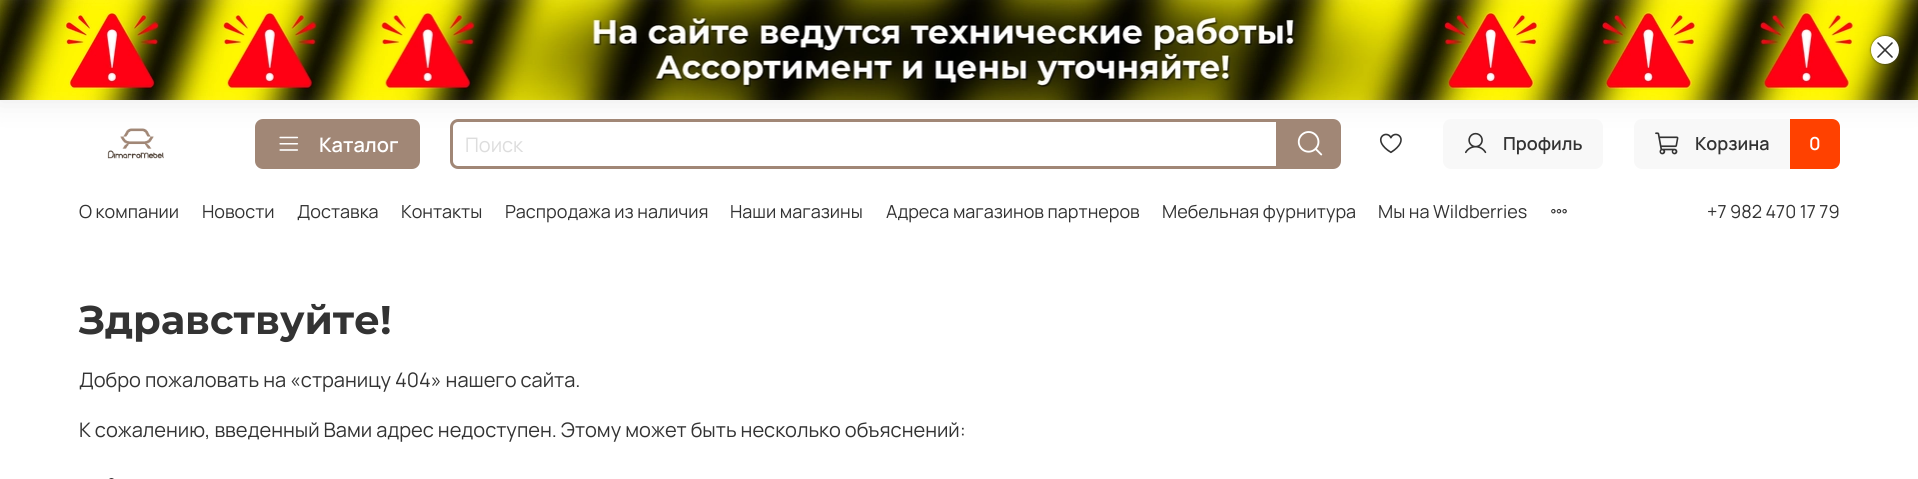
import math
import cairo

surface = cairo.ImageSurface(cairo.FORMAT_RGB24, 1918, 479)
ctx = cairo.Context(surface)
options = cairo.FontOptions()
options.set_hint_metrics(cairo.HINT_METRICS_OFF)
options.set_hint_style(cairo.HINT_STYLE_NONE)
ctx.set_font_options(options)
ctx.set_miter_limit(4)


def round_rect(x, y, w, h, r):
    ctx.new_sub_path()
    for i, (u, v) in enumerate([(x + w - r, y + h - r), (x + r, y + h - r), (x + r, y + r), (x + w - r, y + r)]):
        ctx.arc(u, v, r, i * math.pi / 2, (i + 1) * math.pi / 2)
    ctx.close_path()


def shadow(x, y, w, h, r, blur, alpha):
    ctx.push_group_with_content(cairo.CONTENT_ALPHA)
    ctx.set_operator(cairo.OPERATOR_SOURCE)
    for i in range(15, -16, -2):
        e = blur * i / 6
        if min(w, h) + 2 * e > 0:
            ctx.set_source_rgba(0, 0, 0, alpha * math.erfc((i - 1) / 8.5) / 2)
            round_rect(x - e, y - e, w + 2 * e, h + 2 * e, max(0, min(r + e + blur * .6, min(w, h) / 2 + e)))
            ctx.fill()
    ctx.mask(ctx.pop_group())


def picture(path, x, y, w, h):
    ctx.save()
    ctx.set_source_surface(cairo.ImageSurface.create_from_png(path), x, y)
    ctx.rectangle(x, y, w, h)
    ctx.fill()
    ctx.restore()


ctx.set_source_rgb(1, 1, 1)
ctx.paint()
ctx.set_source_rgb(0, 0, 0)
shadow(-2, -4, 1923, 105, 0, 14.5, 0.09)
picture("img1.png", 0, 0, 1918, 100)
ctx.save()
ctx.set_fill_rule(cairo.FILL_RULE_EVEN_ODD)
ctx.new_path()
ctx.move_to(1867, 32)
ctx.line_to(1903, 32)
ctx.line_to(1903, 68)
ctx.line_to(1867, 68)
ctx.close_path()
ctx.move_to(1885, 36)
ctx.curve_to(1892.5, 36, 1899, 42.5, 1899, 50)
ctx.curve_to(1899, 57.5, 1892.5, 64, 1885, 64)
ctx.curve_to(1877.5, 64, 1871, 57.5, 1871, 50)
ctx.curve_to(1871, 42.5, 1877.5, 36, 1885, 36)
ctx.close_path()
ctx.clip()
ctx.set_source_rgb(0.2, 0.2, 0.2)
shadow(1871, 36, 28, 28, 14, 1, 1)
ctx.restore()
ctx.set_source_rgb(1, 1, 1)
ctx.arc(1885, 50, 14, 0, 2 * math.pi)
ctx.fill()
picture("img2.png", 1877, 42, 16, 16)
picture("img3.png", 107, 128, 57, 31)
ctx.set_source_rgb(0.631, 0.529, 0.463)
round_rect(255, 119, 165, 50, 8)
ctx.fill()
picture("img4.png", 279, 136, 20, 15)
ctx.select_font_face("Manrope SemiBold")
ctx.set_font_size(20)
ctx.set_source_rgb(1, 1, 1)
ctx.move_to(319, 152)
ctx.show_text("Каталог")
ctx.new_path()
ctx.move_to(458, 120.5)
ctx.line_to(1277.5, 120.5)
ctx.line_to(1277.5, 167.5)
ctx.line_to(458, 167.5)
ctx.curve_to(454.5, 167.5, 451.5, 164.5, 451.5, 161)
ctx.line_to(451.5, 127)
ctx.curve_to(451.5, 123.5, 454.5, 120.5, 458, 120.5)
ctx.close_path()
ctx.set_source_rgb(0.631, 0.529, 0.463)
ctx.set_line_width(3)
ctx.stroke()
ctx.select_font_face("Manrope")
ctx.set_source_rgb(0.867, 0.867, 0.867)
ctx.move_to(465, 152)
ctx.show_text("Поиск")
ctx.set_source_rgb(0.631, 0.529, 0.463)
ctx.new_path()
ctx.move_to(1279, 119)
ctx.line_to(1333, 119)
ctx.curve_to(1337.5, 119, 1341, 122.5, 1341, 127)
ctx.line_to(1341, 161)
ctx.curve_to(1341, 165.5, 1337.5, 169, 1333, 169)
ctx.line_to(1279, 169)
ctx.close_path()
ctx.fill()
picture("img5.png", 1297, 131, 26, 25)
picture("img6.png", 1379, 133, 23, 21)
ctx.set_source_rgb(0.969, 0.969, 0.969)
round_rect(1443, 119, 160, 50, 8)
ctx.fill()
picture("img7.png", 1465, 132, 22, 22)
ctx.select_font_face("Manrope SemiBold")
ctx.set_font_size(18)
ctx.set_source_rgb(0.2, 0.2, 0.2)
ctx.move_to(1503, 150)
ctx.show_text("Профиль")
ctx.set_source_rgb(0.969, 0.969, 0.969)
round_rect(1634, 119, 206, 50, 8)
ctx.fill()
picture("img8.png", 1655, 132, 24, 23)
ctx.set_source_rgb(0.2, 0.2, 0.2)
ctx.move_to(1695, 150)
ctx.show_text("Корзина")
ctx.set_source_rgb(1, 0.255, 0)
ctx.new_path()
ctx.move_to(1790, 119)
ctx.line_to(1832, 119)
ctx.curve_to(1836.5, 119, 1840, 122.5, 1840, 127)
ctx.line_to(1840, 161)
ctx.curve_to(1840, 165.5, 1836.5, 169, 1832, 169)
ctx.line_to(1790, 169)
ctx.close_path()
ctx.fill()
ctx.set_source_rgb(1, 1, 1)
ctx.move_to(1809, 150)
ctx.show_text("0")
ctx.select_font_face("Manrope")
ctx.set_source_rgb(0.2, 0.2, 0.2)
ctx.move_to(79, 218)
ctx.show_text("О компании")
ctx.move_to(202, 218)
ctx.show_text("Новости")
ctx.move_to(297, 218)
ctx.show_text("Доставка")
ctx.move_to(401, 218)
ctx.show_text("Контакты")
ctx.move_to(505, 218)
ctx.show_text("Распродажа из наличия")
ctx.move_to(730, 218)
ctx.show_text("Наши магазины")
ctx.move_to(886, 218)
ctx.show_text("Адреса магазинов партнеров")
ctx.move_to(1162, 218)
ctx.show_text("Мебельная фурнитура")
ctx.move_to(1378, 218)
ctx.show_text("Мы на Wildberries")
picture("img9.png", 1551, 209, 16, 5)
ctx.move_to(1707, 218)
ctx.show_text("+7 982 470 17 79")
ctx.select_font_face("Montserrat", cairo.FONT_SLANT_NORMAL, cairo.FONT_WEIGHT_BOLD)
ctx.set_font_size(40)
ctx.move_to(79, 334)
ctx.show_text("Здравствуйте!")
ctx.select_font_face("Manrope")
ctx.set_font_size(20)
ctx.move_to(79, 387)
ctx.show_text("Добро пожаловать на «страницу 404» нашего сайта.")
ctx.move_to(79, 437)
ctx.show_text("К сожалению, введенный Вами адрес недоступен. Этому может быть несколько объяснений:")
round_rect(108, 478, 7, 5, 3.5)
ctx.fill()
surface.write_to_png("page.png")
